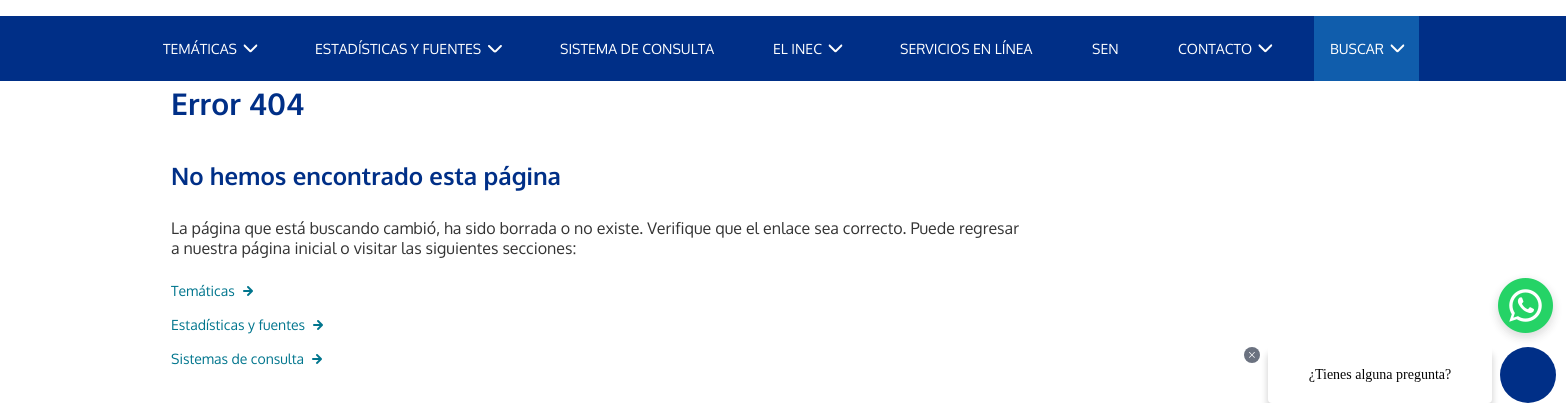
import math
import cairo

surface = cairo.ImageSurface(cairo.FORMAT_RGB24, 1566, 413)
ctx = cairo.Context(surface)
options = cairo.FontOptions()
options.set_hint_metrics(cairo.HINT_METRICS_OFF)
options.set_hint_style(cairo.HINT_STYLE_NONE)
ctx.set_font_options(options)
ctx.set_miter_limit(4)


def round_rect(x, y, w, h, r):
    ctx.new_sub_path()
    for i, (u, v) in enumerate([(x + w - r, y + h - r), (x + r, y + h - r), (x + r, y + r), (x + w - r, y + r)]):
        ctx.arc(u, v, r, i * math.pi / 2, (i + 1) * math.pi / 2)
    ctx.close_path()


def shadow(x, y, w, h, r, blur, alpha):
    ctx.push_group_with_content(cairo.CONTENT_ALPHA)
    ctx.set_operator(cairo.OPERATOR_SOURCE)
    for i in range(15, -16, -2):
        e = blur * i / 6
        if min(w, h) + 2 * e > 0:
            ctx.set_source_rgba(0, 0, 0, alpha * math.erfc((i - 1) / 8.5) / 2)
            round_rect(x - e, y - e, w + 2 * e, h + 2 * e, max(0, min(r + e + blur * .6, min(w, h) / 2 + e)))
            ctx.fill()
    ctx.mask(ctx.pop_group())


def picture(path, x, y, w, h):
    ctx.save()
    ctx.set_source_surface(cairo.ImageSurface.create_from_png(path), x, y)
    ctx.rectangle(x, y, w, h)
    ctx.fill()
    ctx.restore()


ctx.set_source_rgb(1, 1, 1)
ctx.paint()
ctx.set_source_rgb(0, 0.184, 0.529)
ctx.rectangle(0, 16, 1566, 65)
ctx.fill()
ctx.select_font_face("Oxygen")
ctx.set_font_size(14)
ctx.set_source_rgb(1, 1, 1)
ctx.move_to(163, 54)
ctx.show_text("TEMÁTICAS")
picture("img1.png", 243, 44, 15, 9)
ctx.move_to(315, 54)
ctx.show_text("ESTADÍSTICAS Y FUENTES")
picture("img2.png", 488, 45, 14, 8)
ctx.move_to(560, 54)
ctx.show_text("SISTEMA DE CONSULTA")
ctx.move_to(773, 54)
ctx.show_text("EL INEC")
picture("img1.png", 828, 44, 15, 9)
ctx.move_to(900, 54)
ctx.show_text("SERVICIOS EN LÍNEA")
ctx.move_to(1092, 54)
ctx.show_text("SEN")
ctx.move_to(1178, 54)
ctx.show_text("CONTACTO")
picture("img3.png", 1258, 44, 15, 9)
ctx.set_source_rgb(0.063, 0.365, 0.675)
ctx.rectangle(1314, 16, 105, 65)
ctx.fill()
ctx.set_source_rgb(1, 1, 1)
ctx.move_to(1330, 54)
ctx.show_text("BUSCAR")
picture("img4.png", 1390, 44, 15, 9)
ctx.select_font_face("Oxygen", cairo.FONT_SLANT_NORMAL, cairo.FONT_WEIGHT_BOLD)
ctx.set_font_size(30)
ctx.set_source_rgb(0, 0.184, 0.529)
ctx.move_to(171, 115)
ctx.show_text("Error 404")
ctx.set_font_size(24)
ctx.move_to(171, 185)
ctx.show_text("No hemos encontrado esta página")
ctx.select_font_face("Oxygen")
ctx.set_font_size(16)
ctx.set_source_rgb(0.2, 0.2, 0.2)
ctx.move_to(171, 234)
ctx.show_text("La página que está buscando cambió, ha sido borrada o no existe. Verifique que el enlace sea correcto. Puede regresar")
ctx.move_to(171, 254)
ctx.show_text("a nuestra página inicial o visitar las siguientes secciones:")
ctx.set_font_size(14)
ctx.set_source_rgb(0, 0.459, 0.553)
ctx.move_to(171, 296)
ctx.show_text("Temáticas")
picture("img5.png", 243, 286, 10, 10)
ctx.move_to(171, 330)
ctx.show_text("Estadísticas y fuentes")
picture("img5.png", 313, 320, 10, 10)
ctx.move_to(171, 364)
ctx.show_text("Sistemas de consulta")
picture("img5.png", 312, 354, 10, 10)
ctx.set_source_rgb(0, 0, 0)
shadow(1498, 282, 55, 55, 27.5, 5, 0.15)
ctx.set_source_rgb(0.145, 0.827, 0.4)
ctx.arc(1525.5, 305.5, 27.5, 0, 2 * math.pi)
ctx.fill()
picture("img6.png", 1509, 289, 33, 33)
picture("img7.png", 1244, 347, 312, 56)
surface.write_to_png("page.png")
